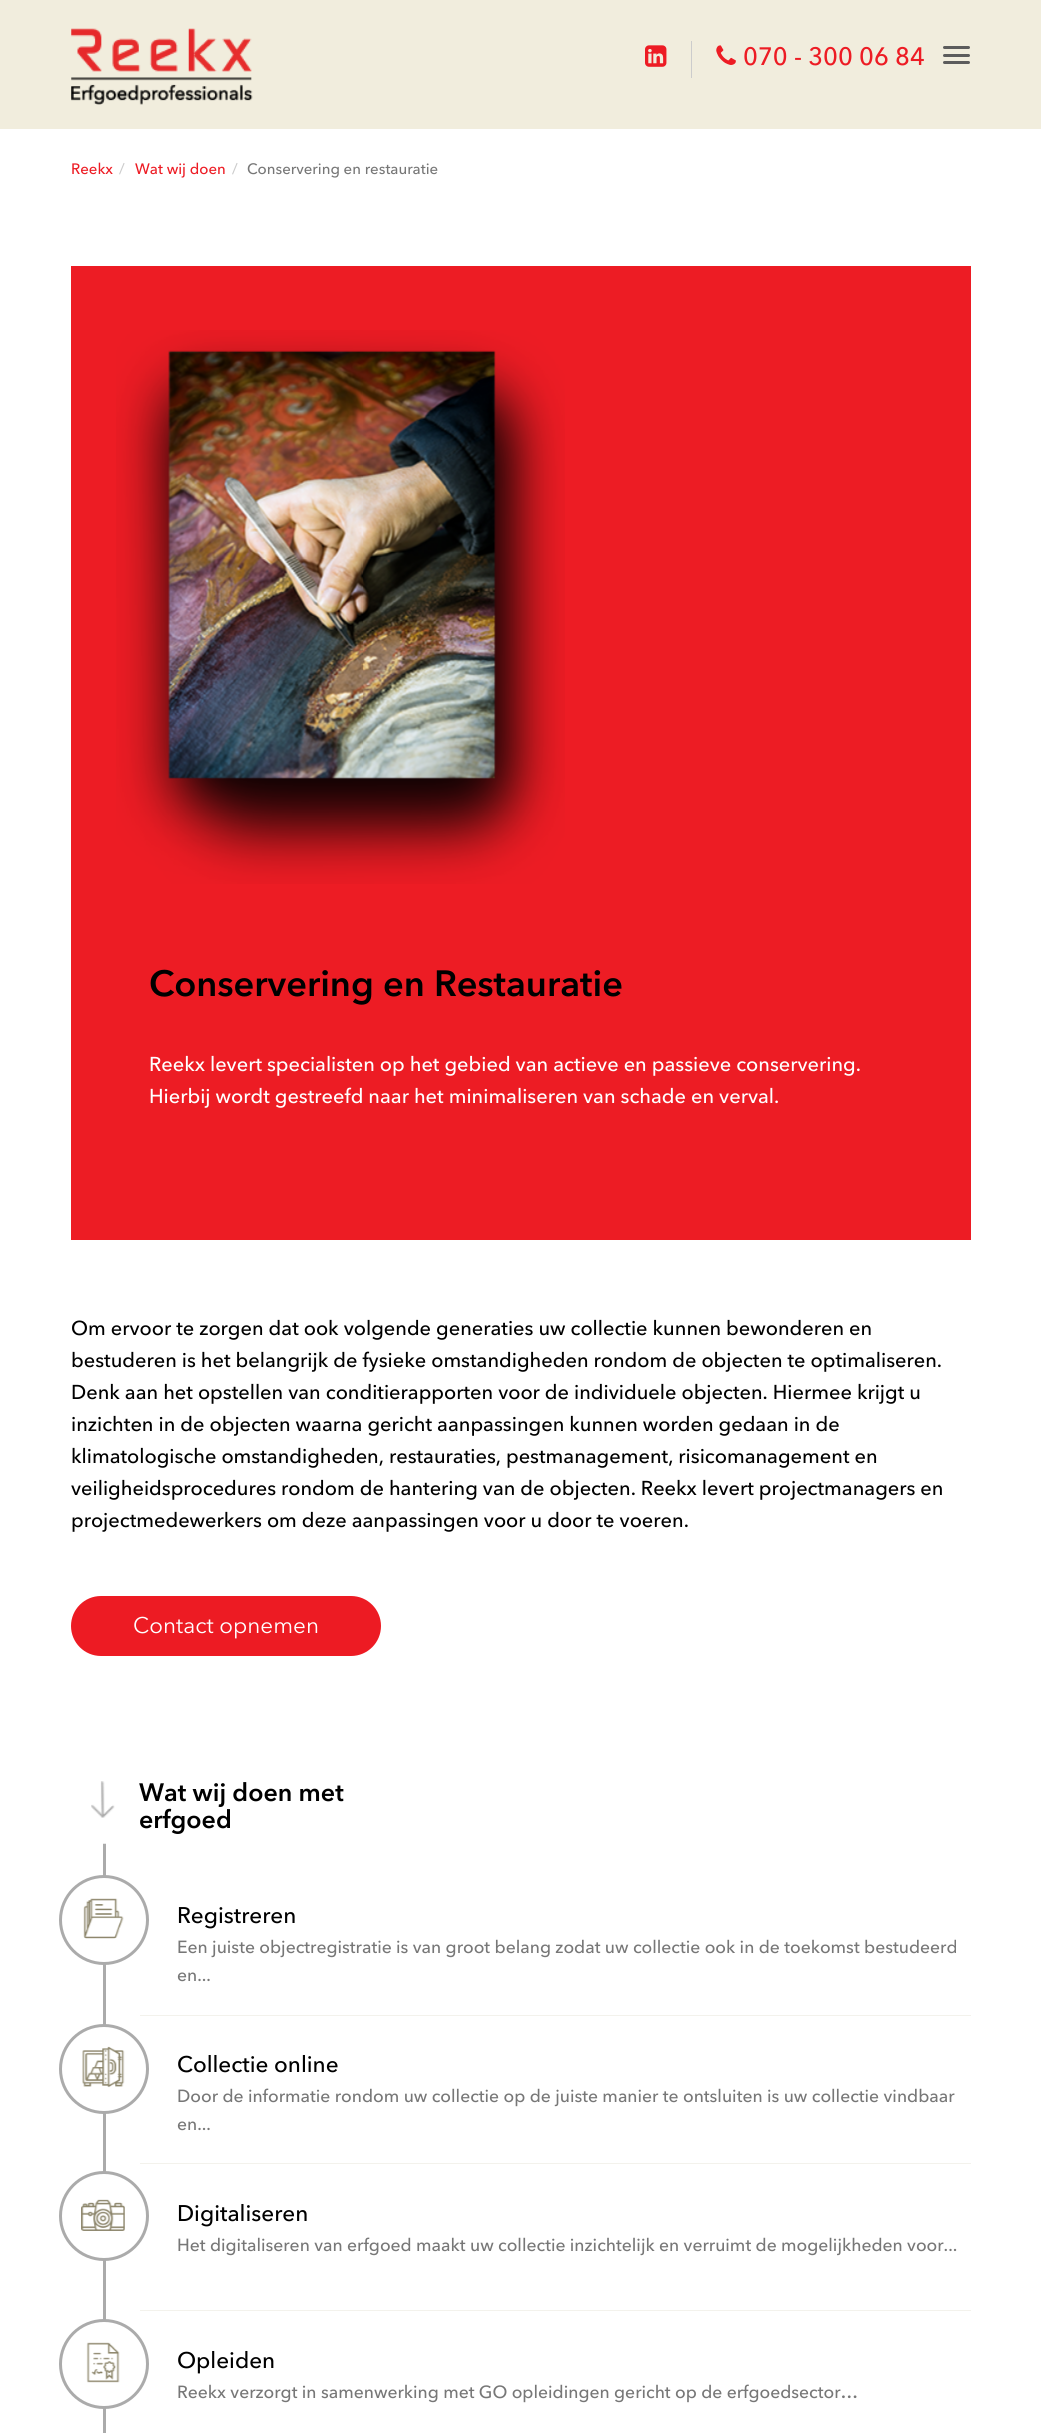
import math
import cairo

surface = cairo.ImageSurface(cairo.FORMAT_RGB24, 1041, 2433)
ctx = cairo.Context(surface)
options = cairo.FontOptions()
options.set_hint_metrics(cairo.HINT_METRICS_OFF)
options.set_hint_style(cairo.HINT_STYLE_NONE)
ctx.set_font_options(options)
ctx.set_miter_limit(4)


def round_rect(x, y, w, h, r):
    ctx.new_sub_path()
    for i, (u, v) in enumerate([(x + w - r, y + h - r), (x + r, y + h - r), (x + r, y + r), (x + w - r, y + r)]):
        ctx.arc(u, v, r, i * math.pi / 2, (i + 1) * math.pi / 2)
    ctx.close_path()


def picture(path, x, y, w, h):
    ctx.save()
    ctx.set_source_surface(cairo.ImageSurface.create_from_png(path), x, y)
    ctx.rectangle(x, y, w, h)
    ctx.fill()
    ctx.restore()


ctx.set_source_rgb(1, 1, 1)
ctx.paint()
ctx.set_source_rgb(0.945, 0.929, 0.867)
ctx.rectangle(0, 0, 1041, 129)
ctx.fill()
picture("img1.png", 71, 28, 182, 77)
ctx.set_source_rgb(0.8, 0.8, 0.8)
ctx.rectangle(691, 41, 1, 37)
ctx.fill()
picture("img2.png", 645, 45, 22, 22)
picture("img3.png", 716, 45, 20, 20)
ctx.select_font_face("Avenir Next Medium")
ctx.set_font_size(25)
ctx.set_source_rgb(0.929, 0.11, 0.141)
ctx.move_to(743, 65)
ctx.show_text("070 - 300 06 84")
ctx.set_source_rgb(0.361, 0.361, 0.361)
round_rect(943, 46, 27, 3, 1.5)
ctx.fill()
round_rect(943, 54, 27, 3, 1.5)
ctx.fill()
round_rect(943, 61, 27, 3, 1.5)
ctx.fill()
ctx.set_font_size(15)
ctx.set_source_rgb(0.929, 0.11, 0.141)
ctx.move_to(71, 174)
ctx.show_text("Reekx")
ctx.set_source_rgb(0.8, 0.8, 0.8)
ctx.move_to(119, 174)
ctx.show_text("/")
ctx.set_source_rgb(0.929, 0.11, 0.141)
ctx.move_to(135, 174)
ctx.show_text("Wat wij doen")
ctx.set_source_rgb(0.8, 0.8, 0.8)
ctx.move_to(232, 174)
ctx.show_text("/")
ctx.set_source_rgb(0.467, 0.467, 0.467)
ctx.move_to(247, 174)
ctx.show_text("Conservering en restauratie")
ctx.set_source_rgb(0.929, 0.11, 0.141)
ctx.rectangle(71, 266, 900, 974)
ctx.fill()
picture("img4.png", 116, 330, 449, 554)
ctx.select_font_face("Avenir Next SemiBold")
ctx.set_font_size(36.25)
ctx.set_source_rgb(0, 0, 0)
ctx.move_to(149, 996)
ctx.show_text("Conservering en Restauratie")
ctx.select_font_face("Avenir Next Medium")
ctx.set_font_size(20)
ctx.set_source_rgb(1, 1, 1)
ctx.move_to(149, 1071)
ctx.show_text("Reekx levert specialisten op het gebied van actieve en passieve conservering.")
ctx.move_to(149, 1103)
ctx.show_text("Hierbij wordt gestreefd naar het minimaliseren van schade en verval.")
ctx.set_source_rgb(0, 0, 0)
ctx.move_to(71, 1335)
ctx.show_text("Om ervoor te zorgen dat ook volgende generaties uw collectie kunnen bewonderen en")
ctx.move_to(71, 1367)
ctx.show_text("bestuderen is het belangrijk de fysieke omstandigheden rondom de objecten te optimaliseren.")
ctx.move_to(71, 1399)
ctx.show_text("Denk aan het opstellen van conditierapporten voor de individuele objecten. Hiermee krijgt u")
ctx.move_to(71, 1431)
ctx.show_text("inzichten in de objecten waarna gericht aanpassingen kunnen worden gedaan in de")
ctx.move_to(71, 1463)
ctx.show_text("klimatologische omstandigheden, restauraties, pestmanagement, risicomanagement en")
ctx.move_to(71, 1495)
ctx.show_text("veiligheidsprocedures rondom de hantering van de objecten. Reekx levert projectmanagers en")
ctx.move_to(71, 1527)
ctx.show_text("projectmedewerkers om deze aanpassingen voor u door te voeren.")
ctx.set_source_rgb(0.929, 0.106, 0.137)
round_rect(71, 1596, 310, 60, 30)
ctx.fill()
ctx.select_font_face("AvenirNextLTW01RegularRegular")
ctx.set_font_size(22.5)
ctx.set_source_rgb(1, 1, 1)
ctx.move_to(133, 1633)
ctx.show_text("Contact opnemen")
ctx.set_source_rgb(0.671, 0.671, 0.671)
ctx.rectangle(103, 1843, 3, 590)
ctx.fill()
picture("img5.png", 91, 1781, 24, 63)
ctx.select_font_face("Avenir Next SemiBold")
ctx.set_font_size(25)
ctx.set_source_rgb(0, 0, 0)
ctx.move_to(139, 1801)
ctx.show_text("Wat wij doen met")
ctx.move_to(139, 1828)
ctx.show_text("erfgoed")
ctx.set_source_rgb(1, 1, 1)
ctx.new_path()
ctx.arc(104, 1920, 43.5, 0, 2 * math.pi)
ctx.fill_preserve()
ctx.set_source_rgb(0.671, 0.671, 0.671)
ctx.set_line_width(3)
ctx.stroke()
picture("img6.png", 83, 1898, 41, 41)
ctx.select_font_face("Avenir Next Medium")
ctx.set_font_size(22.5)
ctx.set_source_rgb(0, 0, 0)
ctx.move_to(177, 1923)
ctx.show_text("Registreren")
ctx.set_font_size(17.5)
ctx.set_source_rgb(0.467, 0.467, 0.467)
ctx.move_to(177, 1953)
ctx.show_text("Een juiste objectregistratie is van groot belang zodat uw collectie ook in de toekomst bestudeerd")
ctx.move_to(177, 1981)
ctx.show_text("en...")
ctx.set_source_rgb(0.953, 0.949, 0.925)
ctx.rectangle(140, 2015, 831, 1)
ctx.fill()
ctx.set_source_rgb(1, 1, 1)
ctx.arc(104, 2069, 43.5, 0, 2 * math.pi)
ctx.fill_preserve()
ctx.set_source_rgb(0.671, 0.671, 0.671)
ctx.stroke()
picture("img7.png", 82, 2046, 43, 42)
ctx.set_font_size(22.5)
ctx.set_source_rgb(0, 0, 0)
ctx.move_to(177, 2072)
ctx.show_text("Collectie online")
ctx.set_font_size(17.5)
ctx.set_source_rgb(0.467, 0.467, 0.467)
ctx.move_to(177, 2102)
ctx.show_text("Door de informatie rondom uw collectie op de juiste manier te ontsluiten is uw collectie vindbaar")
ctx.move_to(177, 2130)
ctx.show_text("en...")
ctx.set_source_rgb(0.953, 0.949, 0.925)
ctx.rectangle(140, 2163, 831, 1)
ctx.fill()
ctx.set_source_rgb(1, 1, 1)
ctx.arc(104, 2216, 43.5, 0, 2 * math.pi)
ctx.fill_preserve()
ctx.set_source_rgb(0.671, 0.671, 0.671)
ctx.stroke()
picture("img8.png", 81, 2199, 44, 32)
ctx.set_font_size(22.5)
ctx.set_source_rgb(0, 0, 0)
ctx.move_to(177, 2221)
ctx.show_text("Digitaliseren")
ctx.set_font_size(17.5)
ctx.set_source_rgb(0.467, 0.467, 0.467)
ctx.move_to(177, 2251)
ctx.show_text("Het digitaliseren van erfgoed maakt uw collectie inzichtelijk en verruimt de mogelijkheden voor...")
ctx.set_source_rgb(0.953, 0.949, 0.925)
ctx.rectangle(140, 2310, 831, 1)
ctx.fill()
ctx.set_source_rgb(1, 1, 1)
ctx.arc(104, 2364, 43.5, 0, 2 * math.pi)
ctx.fill_preserve()
ctx.set_source_rgb(0.671, 0.671, 0.671)
ctx.stroke()
picture("img9.png", 86, 2342, 34, 41)
ctx.set_font_size(22.5)
ctx.set_source_rgb(0, 0, 0)
ctx.move_to(177, 2368)
ctx.show_text("Opleiden")
ctx.set_font_size(17.5)
ctx.set_source_rgb(0.467, 0.467, 0.467)
ctx.move_to(177, 2398)
ctx.show_text("Reekx verzorgt in samenwerking met GO opleidingen gericht op de erfgoedsector…")
surface.write_to_png("page.png")
